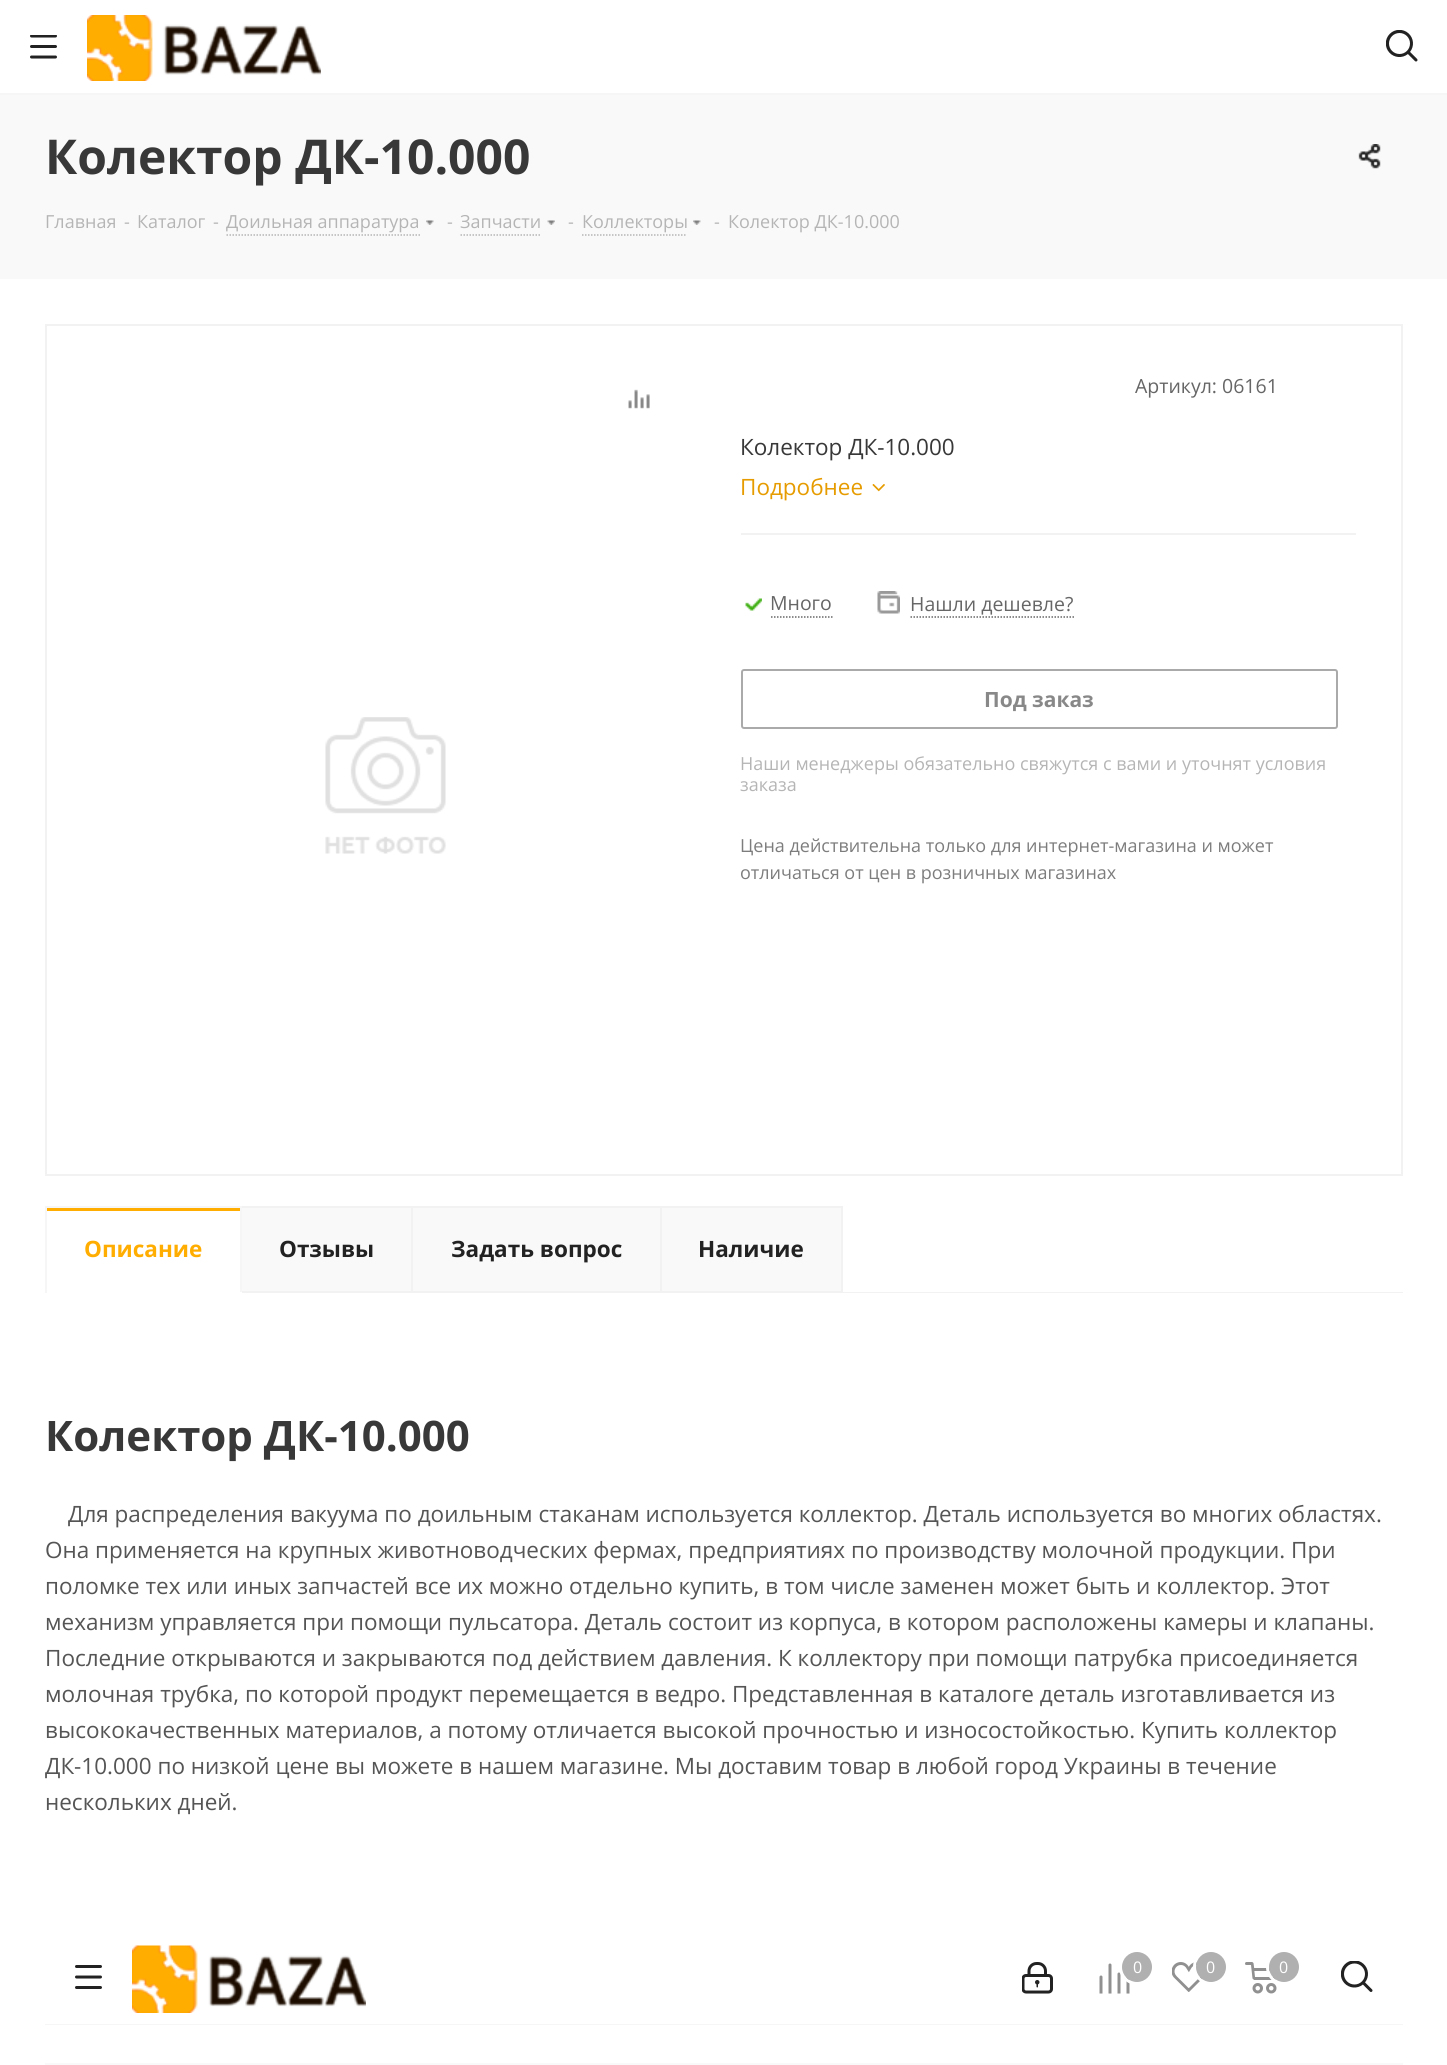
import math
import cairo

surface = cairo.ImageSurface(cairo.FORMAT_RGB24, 1447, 2065)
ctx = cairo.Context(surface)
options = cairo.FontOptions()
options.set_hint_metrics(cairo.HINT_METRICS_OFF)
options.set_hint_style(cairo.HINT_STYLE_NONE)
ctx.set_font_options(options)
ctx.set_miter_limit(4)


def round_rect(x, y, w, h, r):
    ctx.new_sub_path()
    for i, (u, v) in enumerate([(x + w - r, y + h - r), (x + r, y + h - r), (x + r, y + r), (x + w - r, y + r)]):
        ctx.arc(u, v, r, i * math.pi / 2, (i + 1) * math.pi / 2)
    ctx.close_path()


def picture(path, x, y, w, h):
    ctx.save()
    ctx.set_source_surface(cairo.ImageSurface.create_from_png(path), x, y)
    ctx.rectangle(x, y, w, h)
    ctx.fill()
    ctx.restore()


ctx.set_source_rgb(1, 1, 1)
ctx.paint()
ctx.set_source_rgb(0.961, 0.961, 0.961)
ctx.rectangle(0, 93, 1447, 2)
ctx.fill()
picture("img1.png", 30, 35, 27, 24)
picture("img2.png", 87, 15, 234, 66)
picture("img3.png", 1386, 30, 32, 32)
ctx.set_source_rgb(0.976, 0.976, 0.976)
ctx.rectangle(0, 95, 1447, 184)
ctx.fill()
ctx.select_font_face("Open Sans", cairo.FONT_SLANT_NORMAL, cairo.FONT_WEIGHT_BOLD)
ctx.set_font_size(48)
ctx.set_source_rgb(0.22, 0.22, 0.22)
ctx.move_to(45, 174)
ctx.show_text("Колектор ДК-10.000")
picture("img4.png", 1358, 144, 23, 25)
ctx.select_font_face("Open Sans")
ctx.set_font_size(18)
ctx.set_source_rgb(0.714, 0.71, 0.71)
ctx.move_to(45, 228)
ctx.show_text("Главная")
ctx.move_to(124, 228)
ctx.show_text("-")
ctx.move_to(137, 228)
ctx.show_text("Каталог")
ctx.move_to(213, 228)
ctx.show_text("-")
ctx.move_to(226, 228)
ctx.show_text("Доильная аппаратура")
ctx.new_path()
ctx.move_to(226.5, 235)
ctx.line_to(420, 235)
ctx.set_source_rgb(0.706, 0.706, 0.706)
ctx.set_line_width(1.5)
ctx.set_dash([1.5, 1.5])
ctx.stroke()
picture("img5.png", 426, 220, 8, 5)
ctx.set_source_rgb(0.714, 0.71, 0.71)
ctx.move_to(447, 228)
ctx.show_text("-")
ctx.move_to(460, 228)
ctx.show_text("Запчасти")
ctx.new_path()
ctx.move_to(460.5, 235)
ctx.line_to(541.5, 235)
ctx.set_source_rgb(0.706, 0.706, 0.706)
ctx.stroke()
picture("img6.png", 547, 220, 8, 5)
ctx.set_source_rgb(0.714, 0.71, 0.71)
ctx.move_to(568, 228)
ctx.show_text("-")
ctx.move_to(582, 228)
ctx.show_text("Коллекторы")
ctx.new_path()
ctx.move_to(582, 235)
ctx.line_to(687, 235)
ctx.set_source_rgb(0.706, 0.706, 0.706)
ctx.stroke()
picture("img7.png", 693, 220, 8, 5)
ctx.set_source_rgb(0.714, 0.71, 0.71)
ctx.move_to(714, 228)
ctx.show_text("-")
ctx.move_to(728, 228)
ctx.show_text("Колектор ДК-10.000")
ctx.rectangle(46, 325, 1356, 850)
ctx.set_source_rgb(0.949, 0.949, 0.949)
ctx.set_line_width(2)
ctx.set_dash([])
ctx.stroke()
picture("img8.png", 628, 389, 22, 20)
picture("img9.png", 325, 717, 121, 137)
ctx.rectangle(741, 533, 615, 2)
ctx.fill()
ctx.set_font_size(19.5)
ctx.set_source_rgb(0.4, 0.4, 0.4)
ctx.move_to(1135, 393)
ctx.show_text("Артикул: 06161")
ctx.set_font_size(22.5)
ctx.set_source_rgb(0.22, 0.22, 0.22)
ctx.move_to(740, 455)
ctx.show_text("Колектор ДК-10.000")
ctx.set_source_rgb(0.902, 0.612, 0)
ctx.move_to(740, 495)
ctx.show_text("Подробнее")
picture("img10.png", 872, 484, 13, 8)
picture("img11.png", 745, 598, 17, 13)
ctx.set_font_size(19.5)
ctx.set_source_rgb(0.4, 0.4, 0.4)
ctx.move_to(770, 610)
ctx.show_text("Много")
ctx.new_path()
ctx.move_to(771, 617)
ctx.line_to(832.5, 617)
ctx.set_line_width(1.5)
ctx.set_dash([1.5, 1.5])
ctx.stroke()
picture("img12.png", 877, 591, 23, 23)
ctx.move_to(910, 611)
ctx.show_text("Нашли дешевле?")
ctx.new_path()
ctx.move_to(910.5, 617)
ctx.line_to(1074, 617)
ctx.stroke()
round_rect(742, 670, 595, 58, 2)
ctx.set_source_rgb(0.667, 0.667, 0.667)
ctx.set_line_width(2)
ctx.set_dash([])
ctx.stroke()
ctx.select_font_face("Open Sans", cairo.FONT_SLANT_NORMAL, cairo.FONT_WEIGHT_BOLD)
ctx.set_font_size(21)
ctx.set_source_rgb(0.533, 0.533, 0.533)
ctx.move_to(984, 707)
ctx.show_text("Под заказ")
ctx.select_font_face("Open Sans")
ctx.set_font_size(18)
ctx.set_source_rgb(0.714, 0.71, 0.71)
ctx.move_to(740, 770)
ctx.show_text("Наши менеджеры обязательно свяжутся с вами и уточнят условия")
ctx.move_to(740, 791)
ctx.show_text("заказа")
ctx.set_source_rgb(0.49, 0.49, 0.49)
ctx.move_to(740, 852)
ctx.show_text("Цена действительна только для интернет-магазина и может")
ctx.move_to(740, 879)
ctx.show_text("отличаться от цен в розничных магазинах")
ctx.set_source_rgb(0.949, 0.949, 0.949)
ctx.rectangle(843, 1292, 560, 1)
ctx.fill()
ctx.set_source_rgb(0.976, 0.976, 0.98)
ctx.rectangle(241, 1207, 171, 85)
ctx.fill_preserve()
ctx.set_source_rgb(0.949, 0.949, 0.949)
ctx.stroke()
ctx.set_source_rgb(0.961, 0.961, 0.961)
ctx.rectangle(45, 1206, 197, 2)
ctx.fill()
ctx.rectangle(240, 1206, 2, 87)
ctx.fill()
ctx.set_source_rgb(1, 1, 1)
ctx.rectangle(240, 1292, 2, 1)
ctx.fill()
ctx.set_source_rgb(0.961, 0.961, 0.961)
ctx.rectangle(45, 1206, 2, 87)
ctx.fill()
ctx.set_source_rgb(1, 0.678, 0)
ctx.rectangle(47, 1208, 193, 3)
ctx.fill()
ctx.select_font_face("Open Sans", cairo.FONT_SLANT_NORMAL, cairo.FONT_WEIGHT_BOLD)
ctx.set_font_size(22.5)
ctx.move_to(84, 1257)
ctx.show_text("Описание")
ctx.set_source_rgb(0.133, 0.133, 0.133)
ctx.move_to(279, 1257)
ctx.show_text("Отзывы")
ctx.set_source_rgb(0.976, 0.976, 0.98)
ctx.rectangle(412, 1207, 249, 85)
ctx.fill_preserve()
ctx.set_source_rgb(0.949, 0.949, 0.949)
ctx.stroke()
ctx.set_source_rgb(0.133, 0.133, 0.133)
ctx.move_to(451, 1257)
ctx.show_text("Задать вопрос")
ctx.set_source_rgb(0.976, 0.976, 0.98)
ctx.rectangle(661, 1207, 181, 85)
ctx.fill_preserve()
ctx.set_source_rgb(0.949, 0.949, 0.949)
ctx.stroke()
ctx.set_source_rgb(0.133, 0.133, 0.133)
ctx.move_to(698, 1257)
ctx.show_text("Наличие")
ctx.set_font_size(42)
ctx.set_source_rgb(0.22, 0.22, 0.22)
ctx.move_to(45, 1451)
ctx.show_text("Колектор ДК-10.000")
ctx.select_font_face("Open Sans")
ctx.set_font_size(22.5)
ctx.set_source_rgb(0.333, 0.333, 0.333)
ctx.move_to(68, 1522)
ctx.show_text("Для распределения вакуума по доильным стаканам используется коллектор. Деталь используется во многих областях.")
ctx.move_to(45, 1558)
ctx.show_text("Она применяется на крупных животноводческих фермах, предприятиях по производству молочной продукции. При")
ctx.move_to(45, 1594)
ctx.show_text("поломке тех или иных запчастей все их можно отдельно купить, в том числе заменен может быть и коллектор. Этот")
ctx.move_to(45, 1630)
ctx.show_text("механизм управляется при помощи пульсатора. Деталь состоит из корпуса, в котором расположены камеры и клапаны.")
ctx.move_to(45, 1666)
ctx.show_text("Последние открываются и закрываются под действием давления. К коллектору при помощи патрубка присоединяется")
ctx.move_to(45, 1702)
ctx.show_text("молочная трубка, по которой продукт перемещается в ведро. Представленная в каталоге деталь изготавливается из")
ctx.move_to(45, 1738)
ctx.show_text("высококачественных материалов, а потому отличается высокой прочностью и износостойкостью. Купить коллектор")
ctx.move_to(45, 1774)
ctx.show_text("ДК-10.000 по низкой цене вы можете в нашем магазине. Мы доставим товар в любой город Украины в течение")
ctx.move_to(45, 1810)
ctx.show_text("нескольких дней.")
ctx.set_source_rgb(0.961, 0.961, 0.961)
ctx.rectangle(45, 2024, 1358, 1)
ctx.fill()
picture("img13.png", 75, 1965, 27, 24)
picture("img14.png", 132, 1945, 234, 68)
picture("img15.png", 1022, 1962, 31, 32)
picture("img16.png", 1099, 1963, 31, 31)
ctx.arc(1137, 1967, 16.5, 0, 2 * math.pi)
ctx.set_source_rgb(1, 1, 1)
ctx.set_line_width(3)
ctx.stroke()
ctx.set_source_rgb(0.69, 0.69, 0.69)
ctx.arc(1137, 1967, 15, 0, 2 * math.pi)
ctx.fill()
ctx.set_font_size(16)
ctx.set_source_rgb(1, 1, 1)
ctx.move_to(1133, 1973)
ctx.show_text("0")
picture("img17.png", 1172, 1962, 30, 30)
ctx.arc(1211, 1967, 16.5, 0, 2 * math.pi)
ctx.stroke()
ctx.set_source_rgb(0.69, 0.69, 0.69)
ctx.arc(1211, 1967, 15, 0, 2 * math.pi)
ctx.fill()
ctx.set_source_rgb(1, 1, 1)
ctx.move_to(1206, 1973)
ctx.show_text("0")
picture("img18.png", 1245, 1962, 32, 32)
ctx.arc(1284, 1967, 16.5, 0, 2 * math.pi)
ctx.stroke()
ctx.set_source_rgb(0.69, 0.69, 0.69)
ctx.arc(1284, 1967, 15, 0, 2 * math.pi)
ctx.fill()
ctx.set_source_rgb(1, 1, 1)
ctx.move_to(1279, 1973)
ctx.show_text("0")
picture("img19.png", 1341, 1961, 32, 31)
ctx.set_source_rgb(0.976, 0.976, 0.976)
ctx.rectangle(45, 2063, 1358, 2)
ctx.fill()
surface.write_to_png("page.png")
